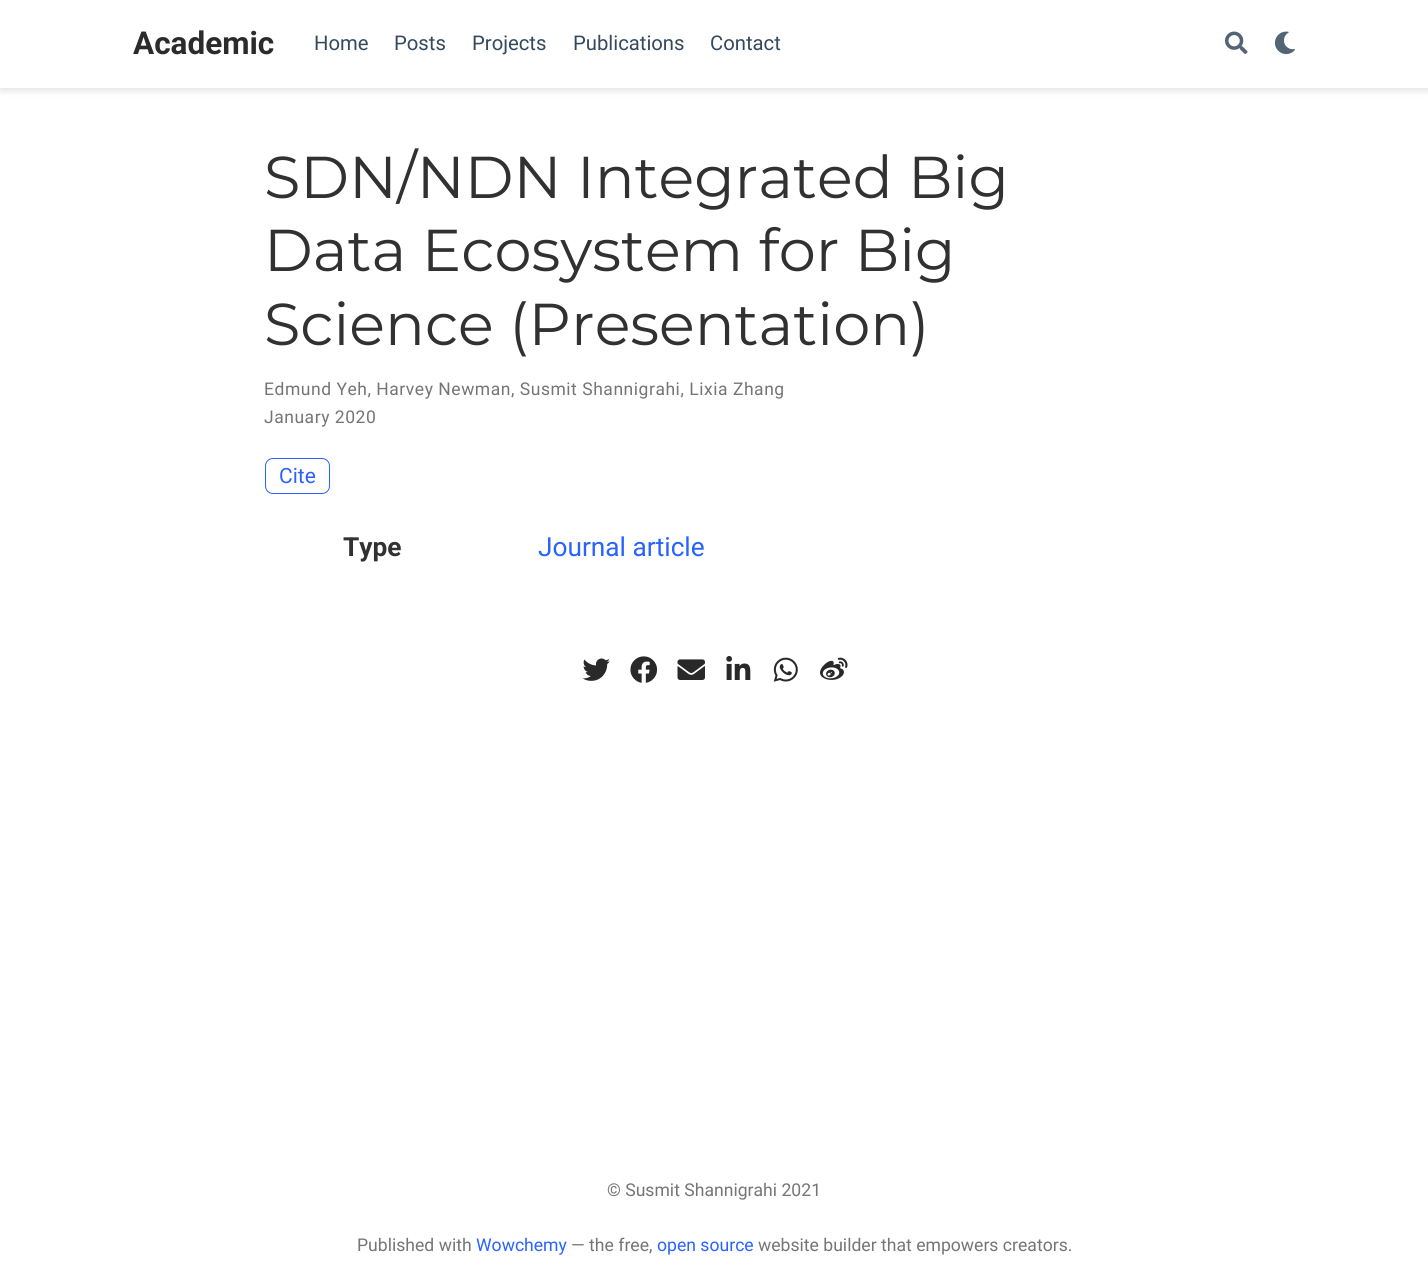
import math
import cairo

surface = cairo.ImageSurface(cairo.FORMAT_RGB24, 1428, 1286)
ctx = cairo.Context(surface)
options = cairo.FontOptions()
options.set_hint_metrics(cairo.HINT_METRICS_OFF)
options.set_hint_style(cairo.HINT_STYLE_NONE)
ctx.set_font_options(options)
ctx.set_miter_limit(4)


def spaced_text(x, y, s, letter, word):
    ctx.move_to(x, y)
    for ch in s:
        ctx.show_text(ch)
        ctx.rel_move_to(letter + word * (ch == ' '), 0)


def round_rect(x, y, w, h, r):
    ctx.new_sub_path()
    for i, (u, v) in enumerate([(x + w - r, y + h - r), (x + r, y + h - r), (x + r, y + r), (x + w - r, y + r)]):
        ctx.arc(u, v, r, i * math.pi / 2, (i + 1) * math.pi / 2)
    ctx.close_path()


def shadow(x, y, w, h, r, blur, alpha):
    ctx.push_group_with_content(cairo.CONTENT_ALPHA)
    ctx.set_operator(cairo.OPERATOR_SOURCE)
    for i in range(15, -16, -2):
        e = blur * i / 6
        if min(w, h) + 2 * e > 0:
            ctx.set_source_rgba(0, 0, 0, alpha * math.erfc((i - 1) / 8.5) / 2)
            round_rect(x - e, y - e, w + 2 * e, h + 2 * e, max(0, min(r + e + blur * .6, min(w, h) / 2 + e)))
            ctx.fill()
    ctx.mask(ctx.pop_group())


def picture(path, x, y, w, h):
    ctx.save()
    ctx.set_source_surface(cairo.ImageSurface.create_from_png(path), x, y)
    ctx.rectangle(x, y, w, h)
    ctx.fill()
    ctx.restore()


ctx.set_source_rgb(1, 1, 1)
ctx.paint()
ctx.set_source_rgb(0, 0, 0)
shadow(0, 4, 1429, 87, 0, 3.5, 0.11)
ctx.set_source_rgb(1, 1, 1)
ctx.rectangle(0, 0, 1428, 88)
ctx.fill()
ctx.select_font_face("Roboto", cairo.FONT_SLANT_NORMAL, cairo.FONT_WEIGHT_BOLD)
ctx.set_font_size(31.5)
ctx.set_source_rgb(0.169, 0.169, 0.169)
ctx.move_to(133, 54)
ctx.show_text("Academic")
ctx.select_font_face("Roboto")
ctx.set_font_size(20.25)
ctx.set_source_rgb(0.204, 0.286, 0.369)
ctx.move_to(314, 50)
ctx.show_text("Home")
ctx.move_to(394, 50)
ctx.show_text("Posts")
ctx.move_to(472, 50)
ctx.show_text("Projects")
ctx.move_to(573, 50)
ctx.show_text("Publications")
ctx.move_to(710, 50)
ctx.show_text("Contact")
picture("img1.png", 1225, 31, 23, 23)
picture("img2.png", 1274, 31, 21, 24)
ctx.select_font_face("Montserrat")
ctx.set_font_size(59)
ctx.set_source_rgb(0.192, 0.192, 0.192)
ctx.move_to(264, 198)
ctx.show_text("SDN/NDN Integrated Big")
ctx.move_to(264, 271)
ctx.show_text("Data Ecosystem for Big")
ctx.move_to(264, 345)
ctx.show_text("Science (Presentation)")
ctx.select_font_face("Roboto")
ctx.set_font_size(17.5)
ctx.set_source_rgb(0.459, 0.459, 0.459)
spaced_text(264, 395, "Edmund Yeh, Harvey Newman, Susmit Shannigrahi, Lixia Zhang", 0.53, 0)
spaced_text(264, 423, "January 2020", 0.53, 0)
round_rect(265.5, 458.5, 64, 35, 7.5)
ctx.set_source_rgb(0.161, 0.384, 1)
ctx.set_line_width(1)
ctx.stroke()
ctx.set_font_size(21)
ctx.move_to(279, 483)
ctx.show_text("Cite")
ctx.select_font_face("Roboto", cairo.FONT_SLANT_NORMAL, cairo.FONT_WEIGHT_BOLD)
ctx.set_font_size(26.25)
ctx.set_source_rgb(0.192, 0.192, 0.192)
ctx.move_to(343, 556)
ctx.show_text("Type")
ctx.select_font_face("Roboto")
ctx.set_source_rgb(0.161, 0.384, 1)
ctx.move_to(538, 556)
ctx.show_text("Journal article")
picture("img3.png", 582, 658, 28, 23)
picture("img4.png", 630, 656, 28, 27)
picture("img5.png", 677, 659, 28, 21)
picture("img6.png", 726, 656, 25, 24)
picture("img7.png", 773, 657, 25, 25)
picture("img8.png", 820, 657, 28, 23)
ctx.set_font_size(17.6)
ctx.set_source_rgb(0.459, 0.459, 0.459)
ctx.move_to(607, 1196)
ctx.show_text("© Susmit Shannigrahi 2021")
ctx.move_to(357, 1251)
ctx.show_text("Published with")
ctx.set_source_rgb(0.161, 0.384, 1)
ctx.move_to(476, 1251)
ctx.show_text("Wowchemy")
ctx.set_source_rgb(0.459, 0.459, 0.459)
ctx.move_to(571, 1251)
ctx.show_text("— the free,")
ctx.set_source_rgb(0.161, 0.384, 1)
ctx.move_to(657, 1251)
ctx.show_text("open source")
ctx.set_source_rgb(0.459, 0.459, 0.459)
ctx.move_to(758, 1251)
ctx.show_text("website builder that empowers creators.")
surface.write_to_png("page.png")
